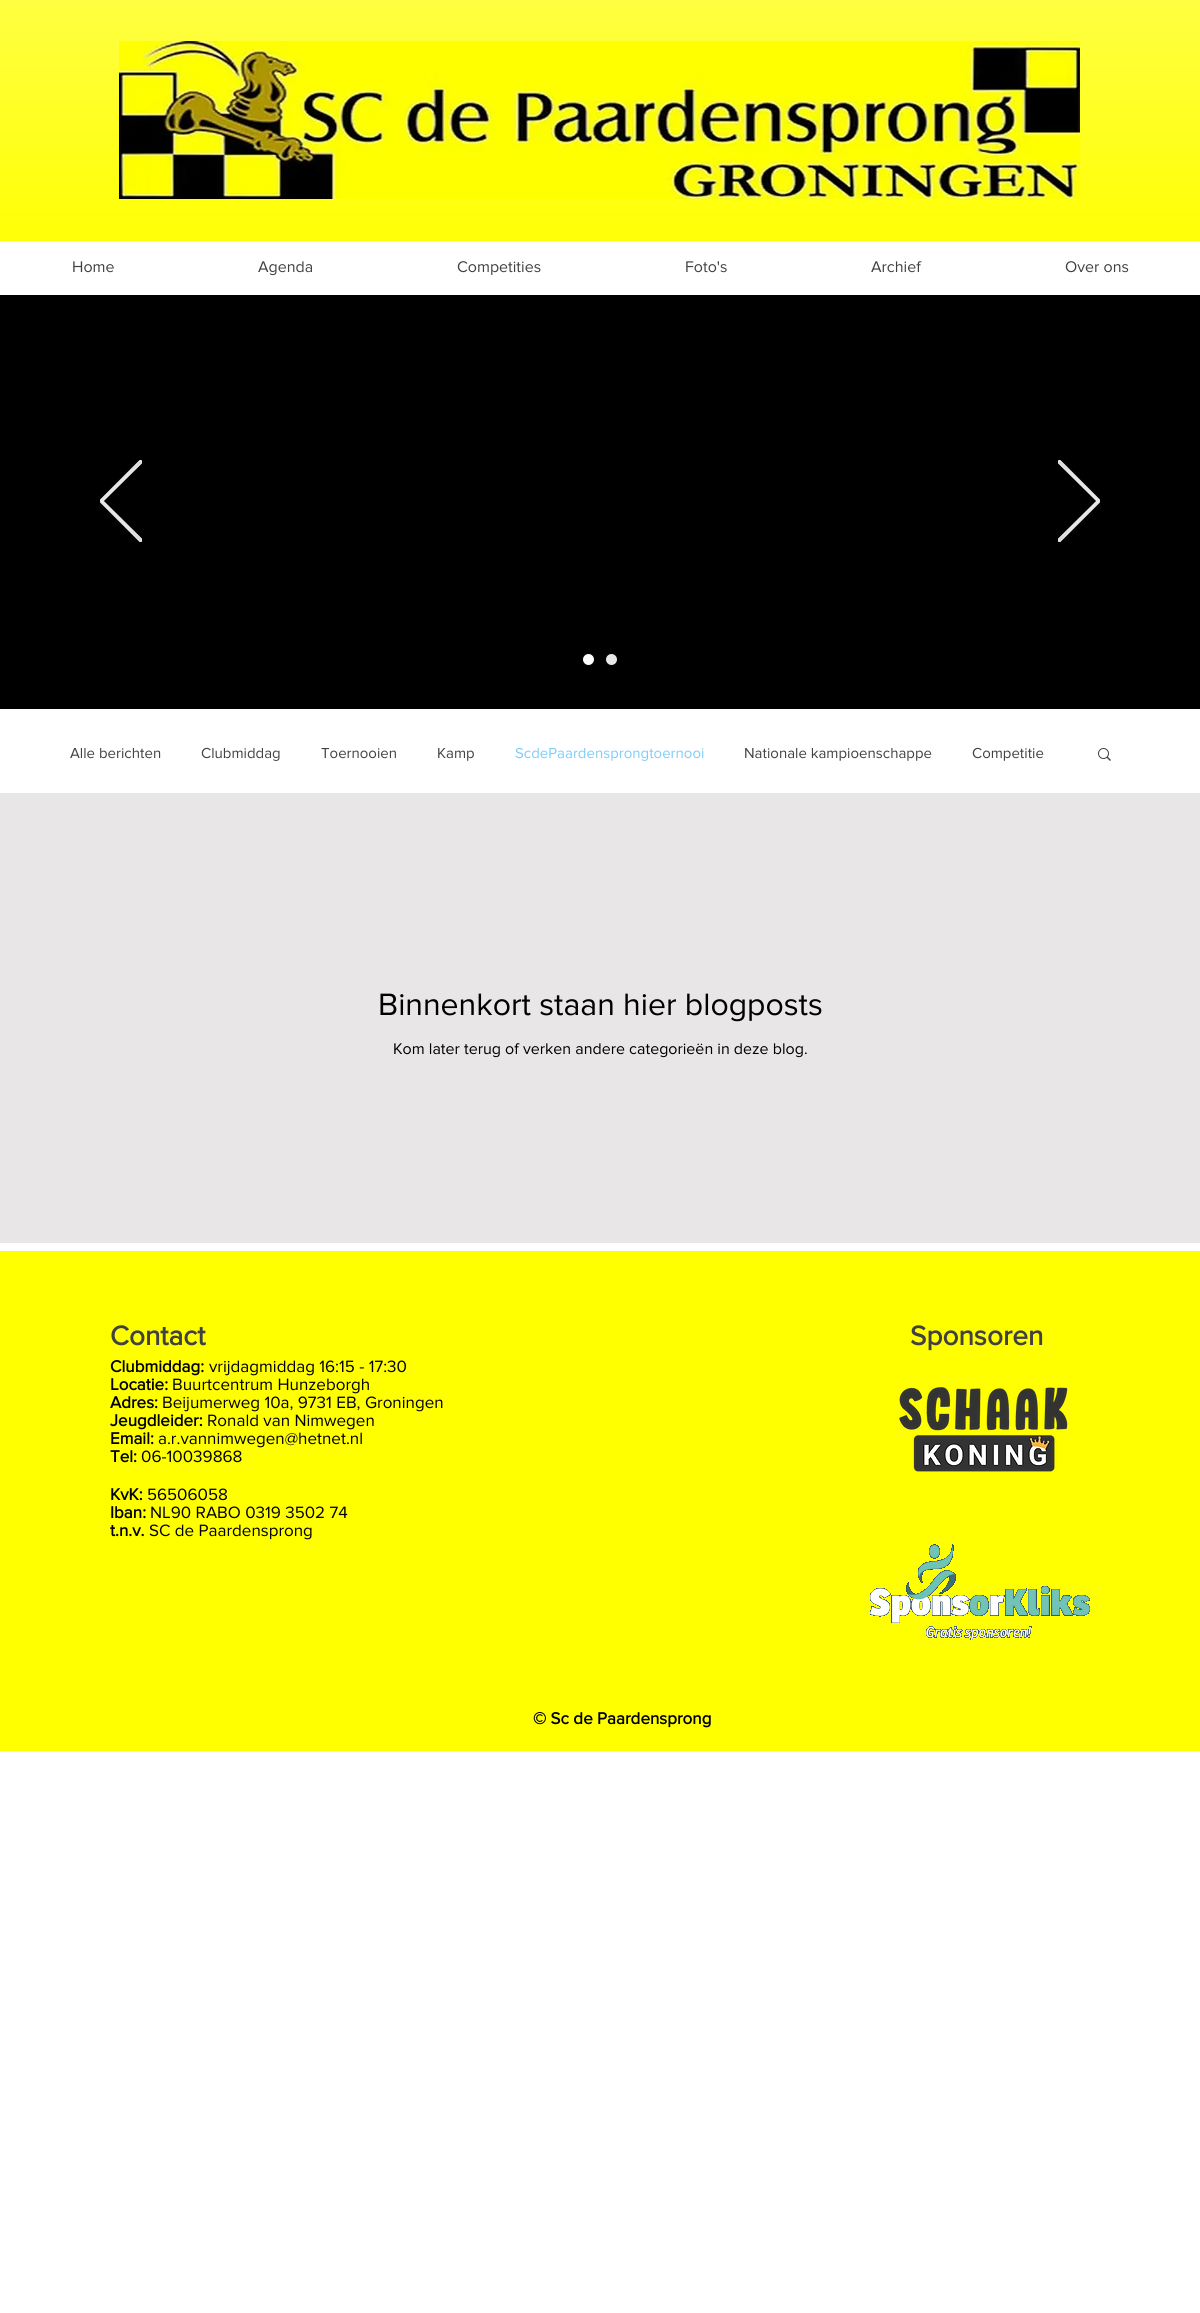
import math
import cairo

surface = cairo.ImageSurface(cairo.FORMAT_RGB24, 1200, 2313)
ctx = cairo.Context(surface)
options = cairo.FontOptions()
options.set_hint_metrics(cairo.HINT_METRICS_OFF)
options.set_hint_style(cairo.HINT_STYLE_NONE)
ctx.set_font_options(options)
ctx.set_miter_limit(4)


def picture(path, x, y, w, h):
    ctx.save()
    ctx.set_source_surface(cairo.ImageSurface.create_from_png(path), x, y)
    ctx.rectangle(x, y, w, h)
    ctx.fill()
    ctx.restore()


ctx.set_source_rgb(1, 1, 1)
ctx.paint()
ctx.set_source_rgb(1, 1, 0)
ctx.rectangle(0, 0, 1200, 241)
ctx.fill()
picture("img1.png", 0, 0, 1200, 241)
picture("img2.png", 119, 41, 961, 158)
ctx.select_font_face("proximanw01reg")
ctx.set_font_size(16)
ctx.set_source_rgb(0.255, 0.255, 0.255)
ctx.move_to(72, 272)
ctx.show_text("Home")
ctx.move_to(258, 272)
ctx.show_text("Agenda")
ctx.move_to(457, 272)
ctx.show_text("Competities")
ctx.move_to(685, 272)
ctx.show_text("Foto's")
ctx.move_to(871, 272)
ctx.show_text("Archief")
ctx.move_to(1065, 272)
ctx.show_text("Over ons")
ctx.set_source_rgb(0, 0, 0)
ctx.rectangle(0, 295, 1200, 414)
ctx.fill()
ctx.save()
ctx.rectangle(100, 460, 42, 82)
ctx.clip()
ctx.new_path()
ctx.move_to(140.5, 541.5)
ctx.line_to(100, 501)
ctx.line_to(140.5, 460.5)
ctx.line_to(142, 462)
ctx.line_to(102.5, 501)
ctx.line_to(142, 540)
ctx.close_path()
ctx.set_source_rgb(0.91, 0.902, 0.902)
ctx.stroke()
ctx.restore()
ctx.save()
ctx.rectangle(1058, 460, 42, 82)
ctx.clip()
ctx.new_path()
ctx.move_to(1059.5, 541.5)
ctx.line_to(1100, 501)
ctx.line_to(1059.5, 460.5)
ctx.line_to(1058, 462)
ctx.line_to(1097.5, 501)
ctx.line_to(1058, 540)
ctx.close_path()
ctx.set_source_rgb(0.91, 0.902, 0.902)
ctx.stroke()
ctx.restore()
ctx.set_source_rgb(1, 1, 1)
ctx.arc(588.5, 659.5, 5.5, 0, 2 * math.pi)
ctx.fill()
ctx.set_source_rgb(0.91, 0.902, 0.902)
ctx.arc(611.5, 659.5, 5.5, 0, 2 * math.pi)
ctx.fill()
ctx.set_font_size(15)
ctx.set_source_rgb(0.255, 0.255, 0.255)
ctx.move_to(70, 758)
ctx.show_text("Alle berichten")
ctx.move_to(201, 758)
ctx.show_text("Clubmiddag")
ctx.move_to(321, 758)
ctx.show_text("Toernooien")
ctx.move_to(437, 758)
ctx.show_text("Kamp")
ctx.set_source_rgb(0.498, 0.8, 0.969)
ctx.move_to(515, 758)
ctx.show_text("ScdePaardensprongtoernooi")
ctx.set_source_rgb(0.255, 0.255, 0.255)
ctx.move_to(744, 758)
ctx.show_text("Nationale kampioenschappe")
ctx.move_to(972, 758)
ctx.show_text("Competitie")
picture("img3.png", 1098, 748, 13, 13)
ctx.set_source_rgb(0.91, 0.902, 0.902)
ctx.rectangle(0, 793, 1200, 450)
ctx.fill()
ctx.set_font_size(32)
ctx.set_source_rgb(0, 0, 0)
ctx.move_to(378, 1015)
ctx.show_text("Binnenkort staan hier blogposts")
ctx.set_font_size(16)
ctx.move_to(393, 1054)
ctx.show_text("Kom later terug of verken andere categorieën in deze blog.")
ctx.set_source_rgb(1, 1, 0)
ctx.rectangle(0, 1251, 1200, 500)
ctx.fill()
ctx.select_font_face("proximanw01reg", cairo.FONT_SLANT_NORMAL, cairo.FONT_WEIGHT_BOLD)
ctx.set_font_size(28)
ctx.set_source_rgb(0.255, 0.255, 0.255)
ctx.move_to(110, 1345)
ctx.show_text("Contact")
ctx.set_font_size(17)
ctx.set_source_rgb(0, 0, 0)
ctx.move_to(110, 1372)
ctx.show_text("Clubmiddag:")
ctx.select_font_face("proximanw01reg")
ctx.move_to(209, 1372)
ctx.show_text("vrijdagmiddag 16:15 - 17:30")
ctx.select_font_face("proximanw01reg", cairo.FONT_SLANT_NORMAL, cairo.FONT_WEIGHT_BOLD)
ctx.move_to(110, 1390)
ctx.show_text("Locatie:")
ctx.select_font_face("proximanw01reg")
ctx.move_to(172, 1390)
ctx.show_text("Buurtcentrum Hunzeborgh")
ctx.select_font_face("proximanw01reg", cairo.FONT_SLANT_NORMAL, cairo.FONT_WEIGHT_BOLD)
ctx.move_to(110, 1408)
ctx.show_text("Adres:")
ctx.select_font_face("proximanw01reg")
ctx.move_to(162, 1408)
ctx.show_text("Beijumerweg 10a, 9731 EB, Groningen")
ctx.select_font_face("proximanw01reg", cairo.FONT_SLANT_NORMAL, cairo.FONT_WEIGHT_BOLD)
ctx.move_to(110, 1426)
ctx.show_text("Jeugdleider:")
ctx.select_font_face("proximanw01reg")
ctx.move_to(207, 1426)
ctx.show_text("Ronald van Nimwegen")
ctx.select_font_face("proximanw01reg", cairo.FONT_SLANT_NORMAL, cairo.FONT_WEIGHT_BOLD)
ctx.move_to(110, 1444)
ctx.show_text("Email:")
ctx.select_font_face("proximanw01reg")
ctx.move_to(158, 1444)
ctx.show_text("a.r.vannimwegen@hetnet.nl")
ctx.select_font_face("proximanw01reg", cairo.FONT_SLANT_NORMAL, cairo.FONT_WEIGHT_BOLD)
ctx.move_to(110, 1462)
ctx.show_text("Tel:")
ctx.select_font_face("proximanw01reg")
ctx.move_to(141, 1462)
ctx.show_text("06-10039868")
ctx.select_font_face("proximanw01reg", cairo.FONT_SLANT_NORMAL, cairo.FONT_WEIGHT_BOLD)
ctx.move_to(110, 1500)
ctx.show_text("KvK:")
ctx.select_font_face("proximanw01reg")
ctx.move_to(147, 1500)
ctx.show_text("56506058")
ctx.select_font_face("proximanw01reg", cairo.FONT_SLANT_NORMAL, cairo.FONT_WEIGHT_BOLD)
ctx.move_to(110, 1518)
ctx.show_text("Iban:")
ctx.select_font_face("proximanw01reg")
ctx.move_to(150, 1518)
ctx.show_text("NL90 RABO 0319 3502 74")
ctx.select_font_face("proximanw01reg", cairo.FONT_SLANT_NORMAL, cairo.FONT_WEIGHT_BOLD)
ctx.move_to(110, 1536)
ctx.show_text("t.n.v.")
ctx.select_font_face("proximanw01reg")
ctx.move_to(149, 1536)
ctx.show_text("SC de Paardensprong")
ctx.select_font_face("proximanw01reg", cairo.FONT_SLANT_NORMAL, cairo.FONT_WEIGHT_BOLD)
ctx.set_font_size(28)
ctx.set_source_rgb(0.255, 0.255, 0.255)
ctx.move_to(910, 1345)
ctx.show_text("Sponsoren")
picture("img4.png", 899, 1387, 169, 85)
picture("img5.png", 870, 1544, 220, 96)
ctx.set_font_size(17)
ctx.set_source_rgb(0, 0, 0)
ctx.move_to(533, 1724)
ctx.show_text("© Sc de Paardensprong")
surface.write_to_png("page.png")
